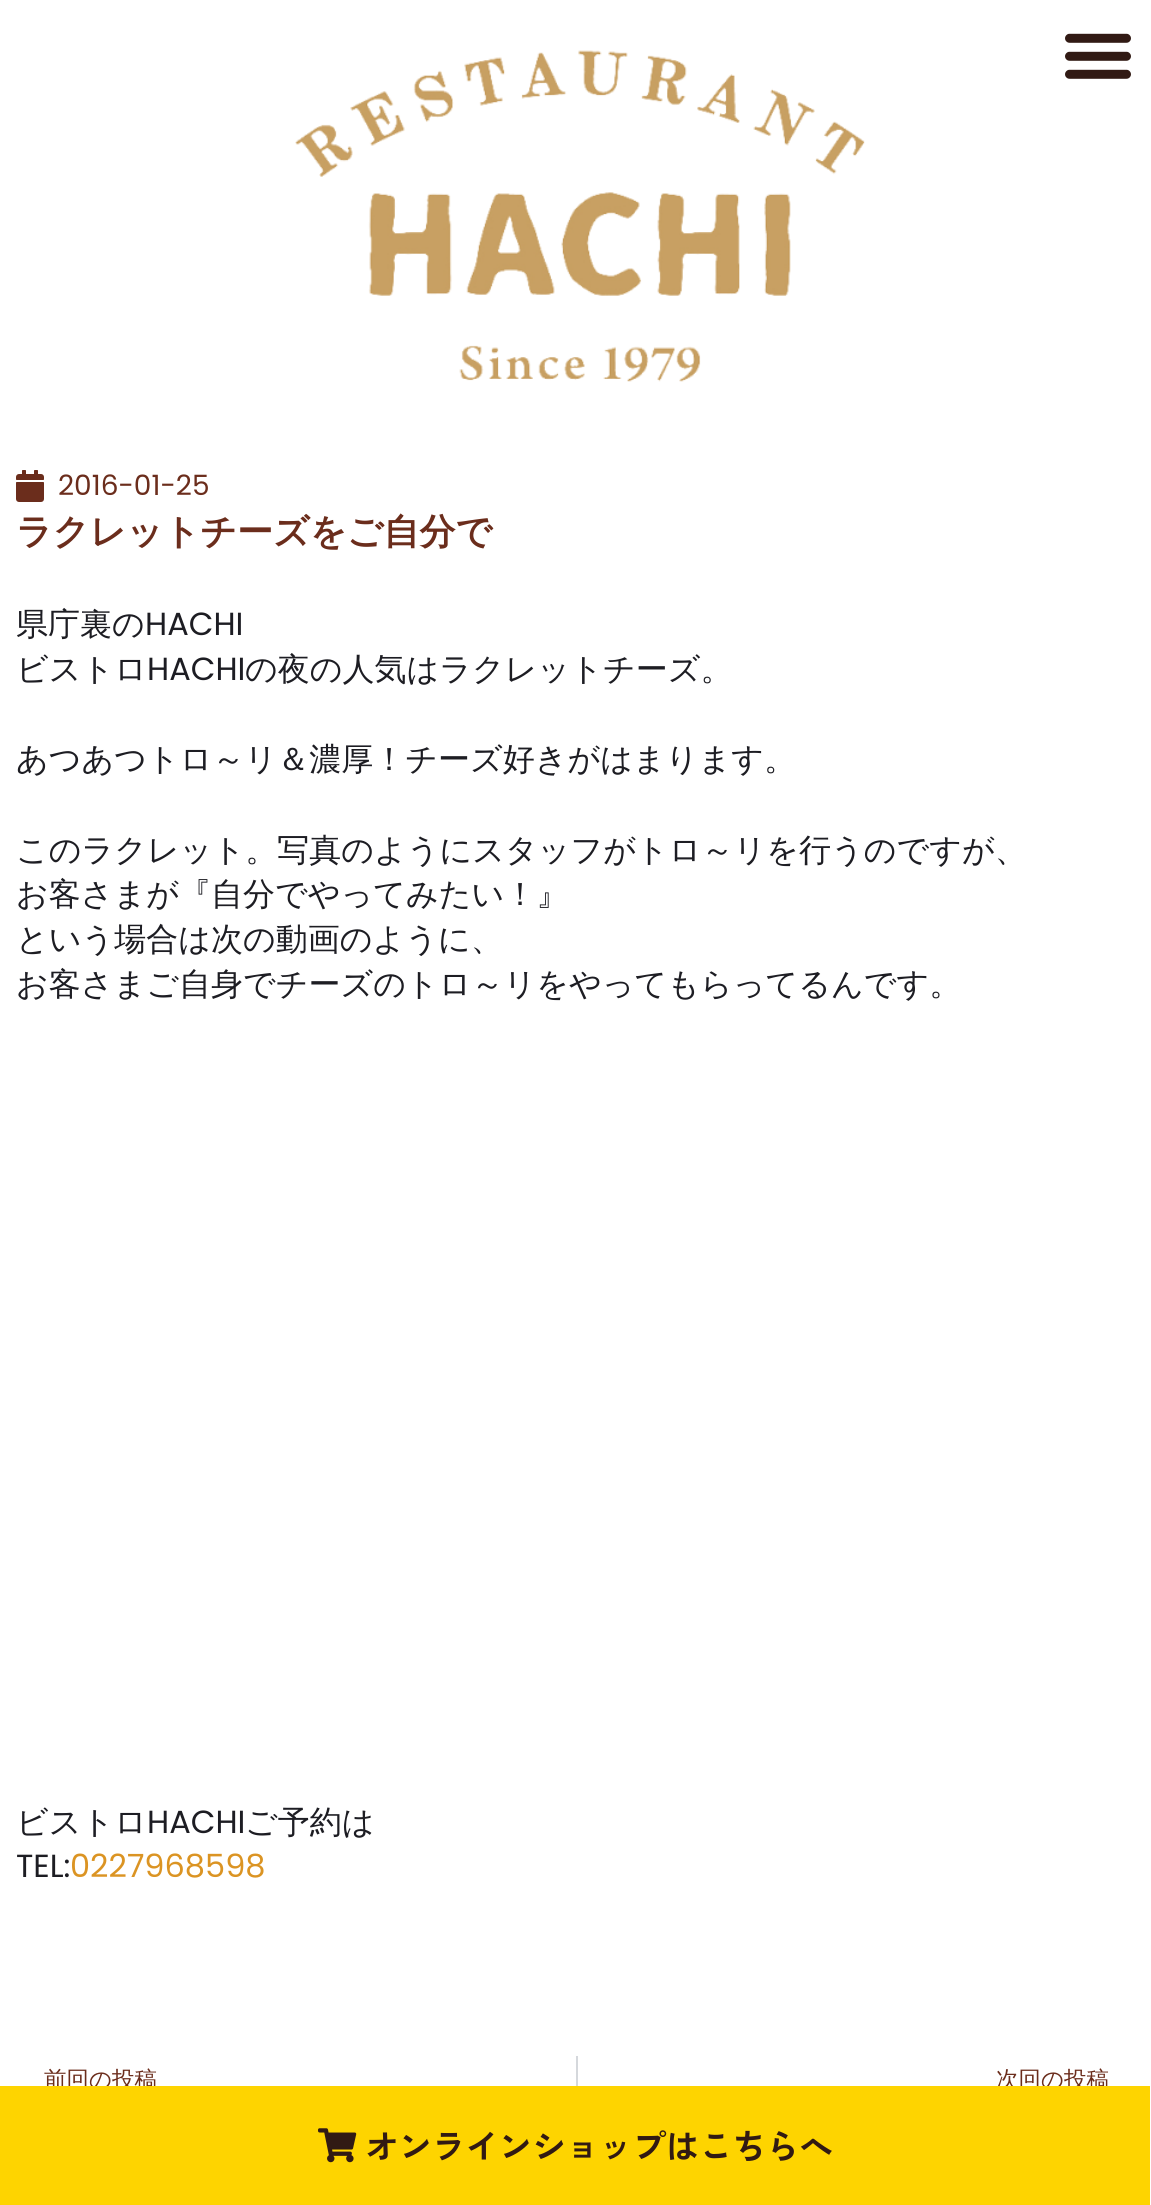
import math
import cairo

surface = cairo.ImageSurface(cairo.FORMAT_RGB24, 1151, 2205)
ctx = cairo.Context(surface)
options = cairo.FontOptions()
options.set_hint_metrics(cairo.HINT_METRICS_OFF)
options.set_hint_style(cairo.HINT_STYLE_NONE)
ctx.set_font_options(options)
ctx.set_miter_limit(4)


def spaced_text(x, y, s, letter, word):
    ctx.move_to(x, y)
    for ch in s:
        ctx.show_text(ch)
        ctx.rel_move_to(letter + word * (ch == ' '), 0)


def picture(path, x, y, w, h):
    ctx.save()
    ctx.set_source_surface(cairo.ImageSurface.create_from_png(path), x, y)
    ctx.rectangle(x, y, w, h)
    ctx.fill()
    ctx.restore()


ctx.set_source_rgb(1, 1, 1)
ctx.paint()
picture("img1.png", 16, 470, 28, 32)
ctx.select_font_face("Poppins")
ctx.set_font_size(28)
ctx.set_source_rgb(0.42, 0.176, 0.11)
ctx.move_to(58, 495)
ctx.show_text("2016-01-25")
ctx.select_font_face("WenQuanYi Zen Hei", cairo.FONT_SLANT_NORMAL, cairo.FONT_WEIGHT_BOLD)
ctx.set_font_size(36)
ctx.move_to(16, 544)
ctx.show_text("ラクレットチーズをご自分で")
ctx.select_font_face("WenQuanYi Zen Hei Medium")
ctx.set_font_size(32)
ctx.set_source_rgb(0.114, 0.114, 0.137)
ctx.move_to(16, 635)
ctx.show_text("県庁裏の")
ctx.select_font_face("Poppins")
ctx.move_to(145, 635)
ctx.show_text("HACHI")
ctx.select_font_face("WenQuanYi Zen Hei Medium")
ctx.move_to(16, 680)
ctx.show_text("ビストロ")
ctx.select_font_face("Poppins")
ctx.move_to(147, 680)
ctx.show_text("HACHI")
ctx.select_font_face("WenQuanYi Zen Hei Medium")
ctx.move_to(245, 680)
ctx.show_text("の夜の人気はラクレットチーズ。")
ctx.move_to(16, 770)
ctx.show_text("あつあつトロ～リ＆濃厚！チーズ好きがはまります。")
ctx.move_to(16, 861)
ctx.show_text("このラクレット。写真のようにスタッフがトロ～リを行うのですが、")
ctx.move_to(16, 905)
ctx.show_text("お客さまが『自分でやってみたい！』")
ctx.move_to(16, 950)
ctx.show_text("という場合は次の動画のように、")
ctx.move_to(16, 995)
ctx.show_text("お客さまご自身でチーズのトロ～リをやってもらってるんです。")
ctx.move_to(16, 1833)
ctx.show_text("ビストロ")
ctx.select_font_face("Poppins")
ctx.move_to(147, 1833)
ctx.show_text("HACHI")
ctx.select_font_face("WenQuanYi Zen Hei Medium")
ctx.move_to(245, 1833)
ctx.show_text("ご予約は")
ctx.select_font_face("Poppins")
ctx.move_to(16, 1877)
ctx.show_text("TEL:")
ctx.set_source_rgb(0.859, 0.58, 0.137)
ctx.move_to(70, 1877)
ctx.show_text("0227968598")
ctx.select_font_face("WenQuanYi Zen Hei Medium")
ctx.set_font_size(22.5)
ctx.set_source_rgb(0.42, 0.176, 0.11)
ctx.move_to(44, 2087)
ctx.show_text("前回の投稿")
ctx.set_source_rgb(0.835, 0.847, 0.863)
ctx.rectangle(576, 2056, 2, 30)
ctx.fill()
ctx.set_source_rgb(0.42, 0.176, 0.11)
ctx.move_to(996, 2087)
ctx.show_text("次回の投稿")
picture("img2.png", 295, 50, 570, 332)
picture("img3.png", 1065, 33, 66, 46)
ctx.set_source_rgb(0.996, 0.831, 0)
ctx.rectangle(0, 2086, 1150, 119)
ctx.fill()
picture("img4.png", 318, 2128, 39, 35)
ctx.select_font_face("Zen Kaku Gothic New", cairo.FONT_SLANT_NORMAL, cairo.FONT_WEIGHT_BOLD)
ctx.set_font_size(34)
ctx.set_source_rgb(0.192, 0.102, 0.078)
spaced_text(365, 2159, "オンラインショップはこちらへ", -0.6, 0)
surface.write_to_png("page.png")
